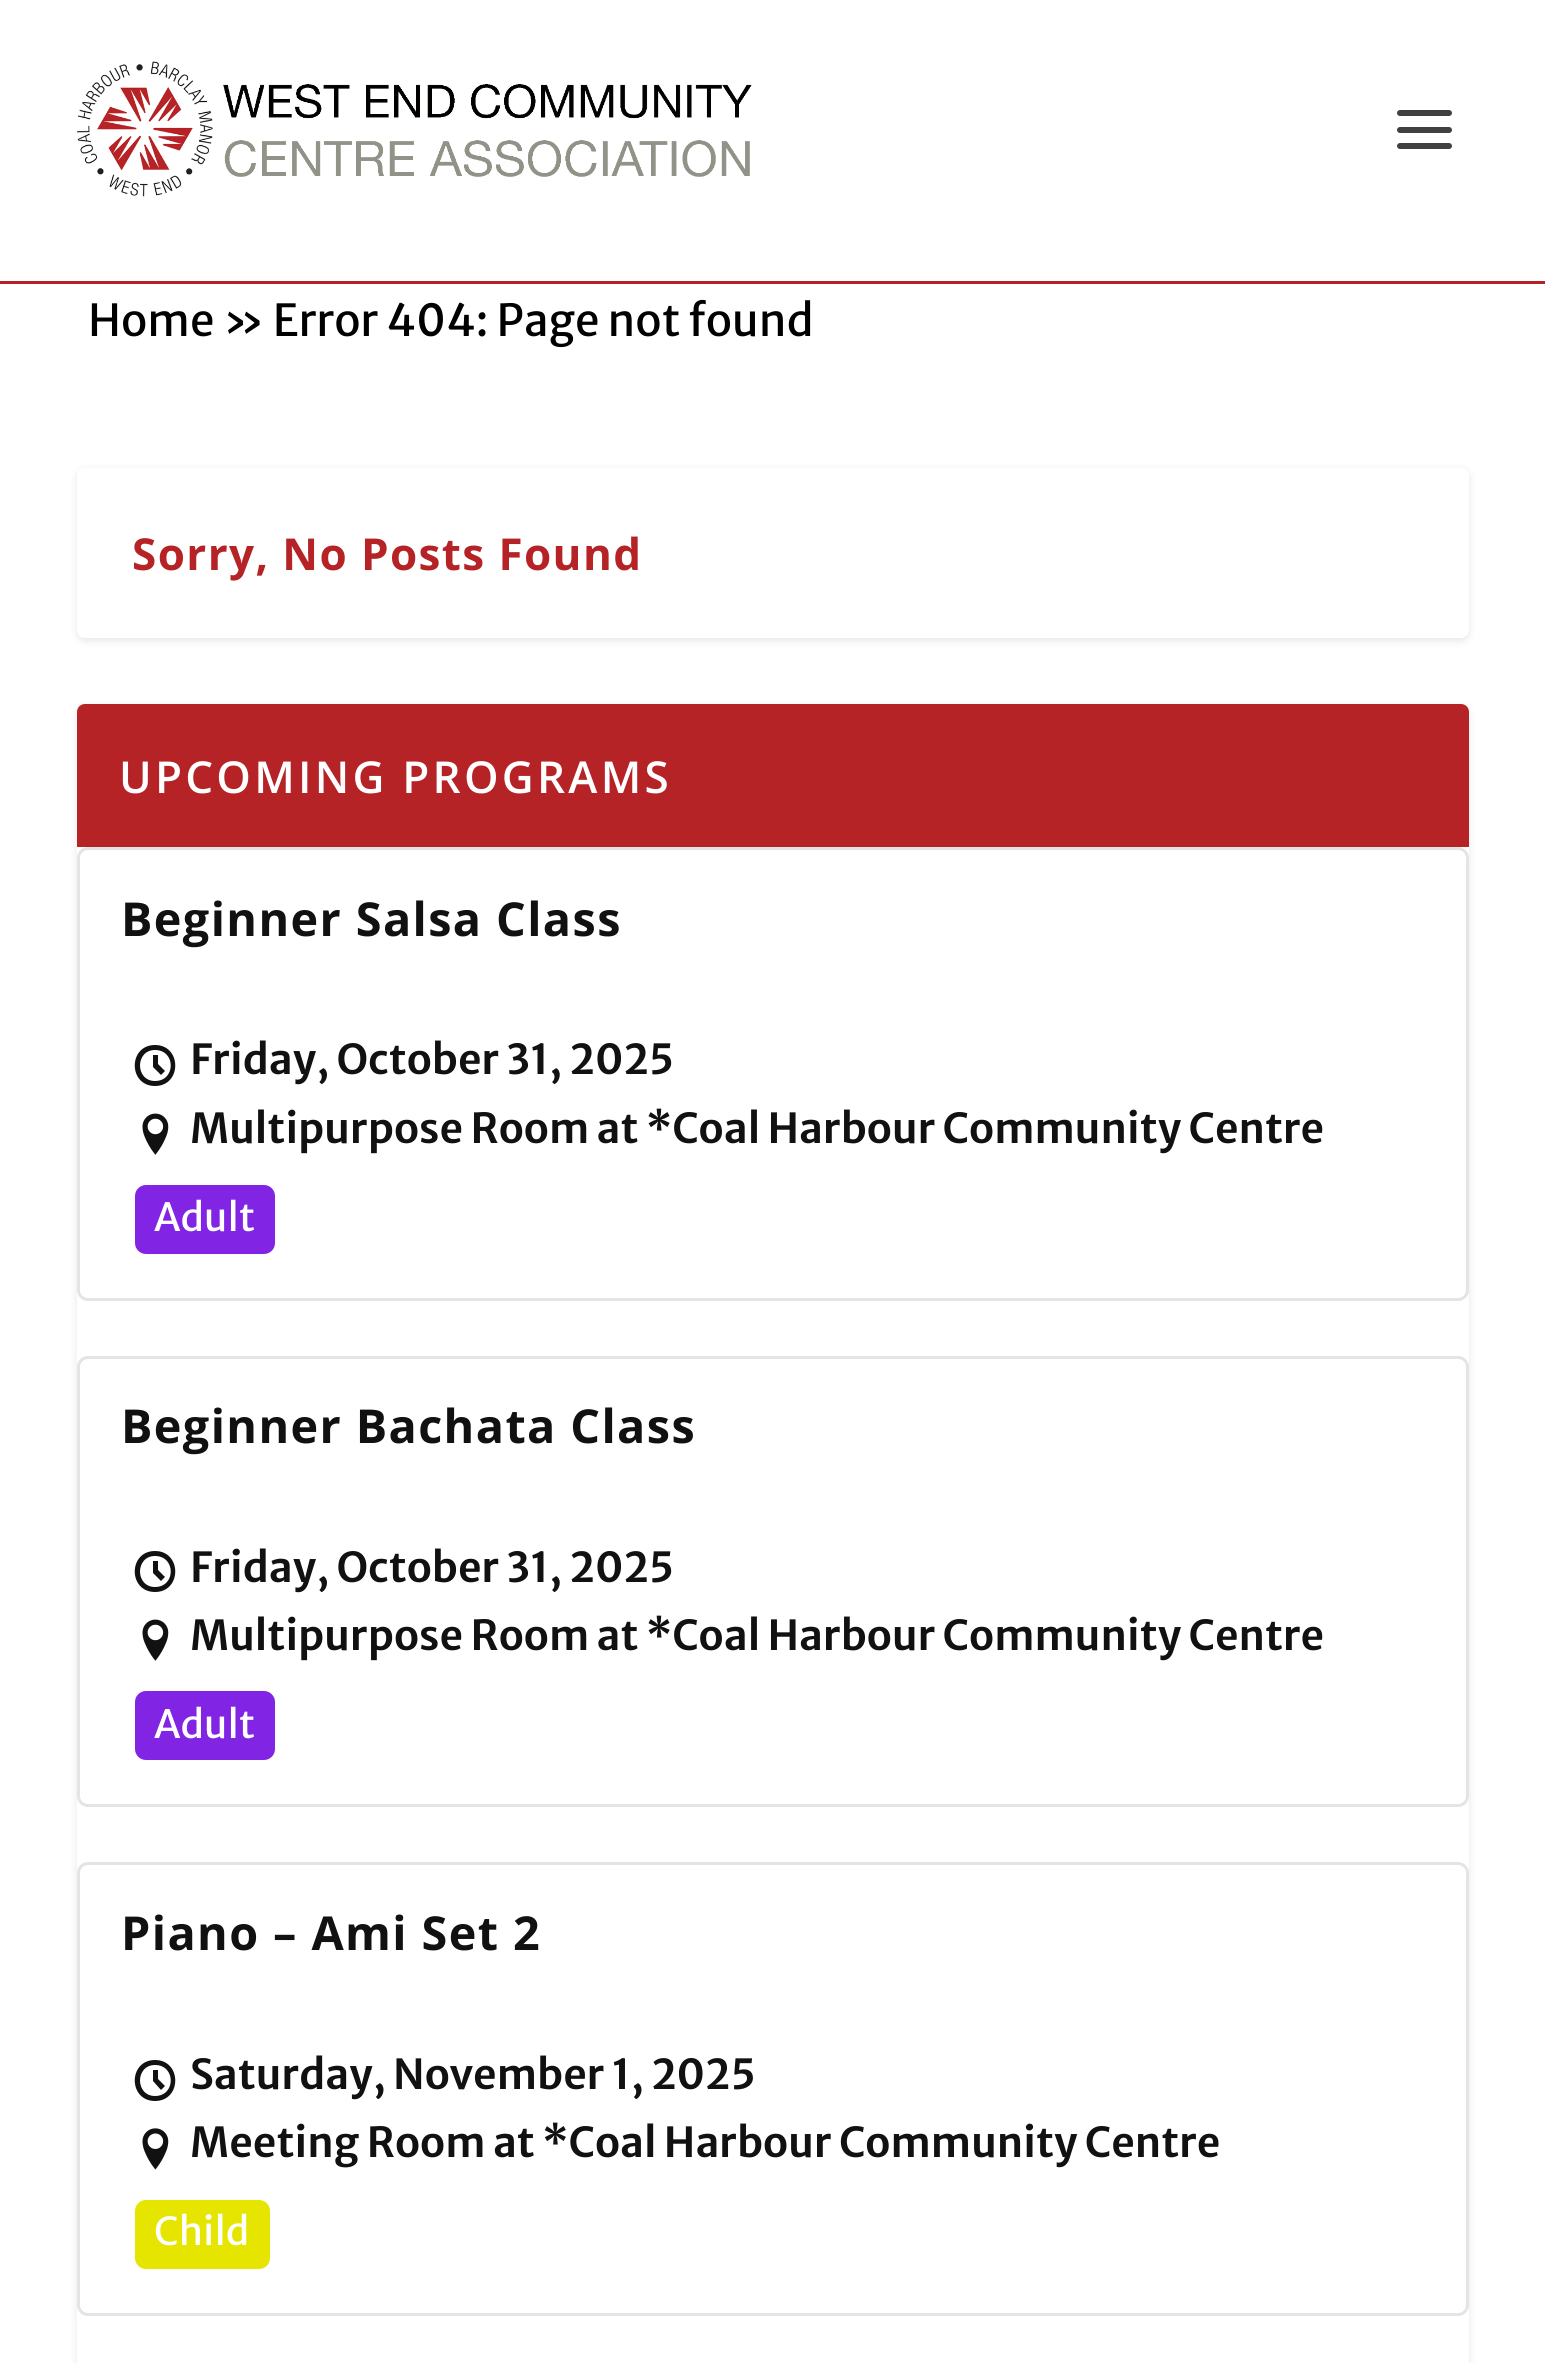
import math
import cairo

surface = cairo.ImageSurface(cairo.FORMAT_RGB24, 1545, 2363)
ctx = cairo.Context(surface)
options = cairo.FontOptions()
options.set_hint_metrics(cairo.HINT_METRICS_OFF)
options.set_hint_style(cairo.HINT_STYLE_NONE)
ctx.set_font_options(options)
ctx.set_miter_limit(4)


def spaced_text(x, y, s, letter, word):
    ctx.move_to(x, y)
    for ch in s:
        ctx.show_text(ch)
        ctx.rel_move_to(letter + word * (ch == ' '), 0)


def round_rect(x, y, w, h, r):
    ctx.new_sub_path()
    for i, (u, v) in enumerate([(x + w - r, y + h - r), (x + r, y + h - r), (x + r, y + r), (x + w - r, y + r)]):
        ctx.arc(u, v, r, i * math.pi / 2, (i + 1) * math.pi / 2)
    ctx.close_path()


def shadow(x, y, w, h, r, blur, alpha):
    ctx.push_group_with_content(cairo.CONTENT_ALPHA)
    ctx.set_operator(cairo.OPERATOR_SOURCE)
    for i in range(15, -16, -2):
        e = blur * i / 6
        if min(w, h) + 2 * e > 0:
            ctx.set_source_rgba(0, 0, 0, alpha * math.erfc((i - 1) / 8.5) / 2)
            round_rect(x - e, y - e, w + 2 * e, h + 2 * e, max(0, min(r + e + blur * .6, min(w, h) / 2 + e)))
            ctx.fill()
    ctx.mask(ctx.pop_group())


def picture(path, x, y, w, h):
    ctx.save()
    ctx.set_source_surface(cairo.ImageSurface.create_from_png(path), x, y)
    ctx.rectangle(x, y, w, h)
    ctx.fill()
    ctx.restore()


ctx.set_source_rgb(1, 1, 1)
ctx.paint()
ctx.set_source_rgb(0.71, 0.137, 0.149)
ctx.rectangle(0, 281, 1545, 3)
ctx.fill()
picture("img1.png", 77, 61, 675, 136)
ctx.set_source_rgb(0.251, 0.251, 0.251)
round_rect(1397, 110, 55, 6, 3)
ctx.fill()
round_rect(1397, 127, 55, 6, 3)
ctx.fill()
round_rect(1397, 143, 55, 6, 3)
ctx.fill()
ctx.select_font_face("Merriweather Sans")
ctx.set_font_size(44)
ctx.set_source_rgb(0, 0, 0)
ctx.move_to(88, 336)
ctx.show_text("Home » Error 404: Page not found")
ctx.set_source_rgb(0, 0, 0)
shadow(77, 470, 1392, 171, 8, 4, 0.1)
ctx.set_source_rgb(1, 1, 1)
round_rect(77, 468, 1392, 170, 8)
ctx.fill()
ctx.select_font_face("Open Sans", cairo.FONT_SLANT_NORMAL, cairo.FONT_WEIGHT_BOLD)
ctx.set_source_rgb(0.71, 0.137, 0.149)
spaced_text(132, 570, "Sorry, No Posts Found", 1.4, 0)
ctx.set_source_rgb(0, 0, 0)
shadow(77, 707, 1392, 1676, 8, 4, 0.1)
ctx.set_source_rgb(1, 1, 1)
round_rect(77, 704, 1392, 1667, 8)
ctx.fill()
ctx.set_source_rgb(0.71, 0.137, 0.149)
ctx.new_path()
ctx.move_to(85, 704)
ctx.line_to(1461, 704)
ctx.curve_to(1465.5, 704, 1469, 707.5, 1469, 712)
ctx.line_to(1469, 847)
ctx.line_to(77, 847)
ctx.line_to(77, 712)
ctx.curve_to(77, 707.5, 80.5, 704, 85, 704)
ctx.close_path()
ctx.fill()
ctx.select_font_face("Open Sans SemiBold")
ctx.set_source_rgb(1, 1, 1)
spaced_text(119, 793, "UPCOMING PROGRAMS", 3.25, 0)
round_rect(78.5, 848.5, 1389, 451, 9.5)
ctx.set_source_rgb(0.894, 0.894, 0.894)
ctx.set_line_width(3)
ctx.stroke()
ctx.select_font_face("Open Sans", cairo.FONT_SLANT_NORMAL, cairo.FONT_WEIGHT_BOLD)
ctx.set_font_size(46.75)
ctx.set_source_rgb(0.067, 0.067, 0.067)
spaced_text(121, 936, "Beginner Salsa Class", 1.4, 0)
ctx.new_path()
ctx.move_to(161, 1075)
ctx.line_to(153, 1067)
ctx.line_to(153, 1055)
ctx.line_to(158, 1055)
ctx.line_to(158, 1064)
ctx.line_to(165, 1071)
ctx.close_path()
ctx.move_to(155, 1045)
ctx.curve_to(128, 1045, 128, 1086, 155, 1086)
ctx.curve_to(182, 1086, 182, 1045, 155, 1045)
ctx.close_path()
ctx.move_to(155, 1081)
ctx.curve_to(135, 1081, 135, 1050, 155, 1050)
ctx.curve_to(176, 1050, 176, 1081, 155, 1081)
ctx.close_path()
ctx.fill()
ctx.select_font_face("Merriweather Sans SemiBold")
ctx.set_font_size(41.25)
ctx.move_to(190, 1074)
ctx.show_text("Friday, October 31, 2025")
picture("img2.png", 142, 1113, 27, 42)
ctx.move_to(190, 1143)
ctx.show_text("Multipurpose Room at *Coal Harbour Community Centre")
ctx.set_source_rgb(0.51, 0.141, 0.89)
round_rect(135, 1185, 140, 69, 11)
ctx.fill()
ctx.select_font_face("Merriweather Sans")
ctx.set_font_size(38.5)
ctx.set_source_rgb(1, 1, 1)
ctx.move_to(154, 1231)
ctx.show_text("Adult")
round_rect(78.5, 1357.5, 1389, 448, 9.5)
ctx.set_source_rgb(0.894, 0.894, 0.894)
ctx.stroke()
ctx.select_font_face("Open Sans", cairo.FONT_SLANT_NORMAL, cairo.FONT_WEIGHT_BOLD)
ctx.set_font_size(46.75)
ctx.set_source_rgb(0.067, 0.067, 0.067)
spaced_text(121, 1443, "Beginner Bachata Class", 1.4, 0)
ctx.new_path()
ctx.move_to(161, 1581)
ctx.line_to(153, 1573)
ctx.line_to(153, 1561)
ctx.line_to(158, 1561)
ctx.line_to(158, 1570)
ctx.line_to(165, 1577)
ctx.close_path()
ctx.move_to(155, 1551)
ctx.curve_to(128, 1551, 128, 1592, 155, 1592)
ctx.curve_to(182, 1592, 182, 1551, 155, 1551)
ctx.close_path()
ctx.move_to(155, 1587)
ctx.curve_to(135, 1587, 135, 1556, 155, 1556)
ctx.curve_to(176, 1556, 176, 1587, 155, 1587)
ctx.close_path()
ctx.fill()
ctx.select_font_face("Merriweather Sans SemiBold")
ctx.set_font_size(41.25)
ctx.move_to(190, 1582)
ctx.show_text("Friday, October 31, 2025")
picture("img2.png", 142, 1619, 27, 42)
ctx.move_to(190, 1650)
ctx.show_text("Multipurpose Room at *Coal Harbour Community Centre")
ctx.set_source_rgb(0.51, 0.141, 0.89)
round_rect(135, 1691, 140, 69, 11)
ctx.fill()
ctx.select_font_face("Merriweather Sans")
ctx.set_font_size(38.5)
ctx.set_source_rgb(1, 1, 1)
ctx.move_to(154, 1738)
ctx.show_text("Adult")
round_rect(78.5, 1863.5, 1389, 451, 9.5)
ctx.set_source_rgb(0.894, 0.894, 0.894)
ctx.stroke()
ctx.select_font_face("Open Sans", cairo.FONT_SLANT_NORMAL, cairo.FONT_WEIGHT_BOLD)
ctx.set_font_size(46.75)
ctx.set_source_rgb(0.067, 0.067, 0.067)
spaced_text(121, 1950, "Piano – Ami Set 2", 1.4, 0)
ctx.new_path()
ctx.move_to(161, 2090)
ctx.line_to(153, 2081)
ctx.line_to(153, 2070)
ctx.line_to(158, 2070)
ctx.line_to(158, 2079)
ctx.line_to(165, 2086)
ctx.close_path()
ctx.move_to(155, 2060)
ctx.curve_to(128, 2060, 128, 2101, 155, 2101)
ctx.curve_to(182, 2101, 182, 2060, 155, 2060)
ctx.close_path()
ctx.move_to(155, 2096)
ctx.curve_to(135, 2096, 135, 2065, 155, 2065)
ctx.curve_to(176, 2065, 176, 2096, 155, 2096)
ctx.close_path()
ctx.fill()
ctx.select_font_face("Merriweather Sans SemiBold")
ctx.set_font_size(41.25)
ctx.move_to(190, 2089)
ctx.show_text("Saturday, November 1, 2025")
picture("img3.png", 142, 2128, 27, 42)
ctx.move_to(190, 2157)
ctx.show_text("Meeting Room at *Coal Harbour Community Centre")
ctx.set_source_rgb(0.898, 0.898, 0)
round_rect(135, 2200, 135, 69, 11)
ctx.fill()
ctx.select_font_face("Merriweather Sans")
ctx.set_font_size(38.5)
ctx.set_source_rgb(1, 1, 1)
ctx.move_to(154, 2245)
ctx.show_text("Child")
surface.write_to_png("page.png")
